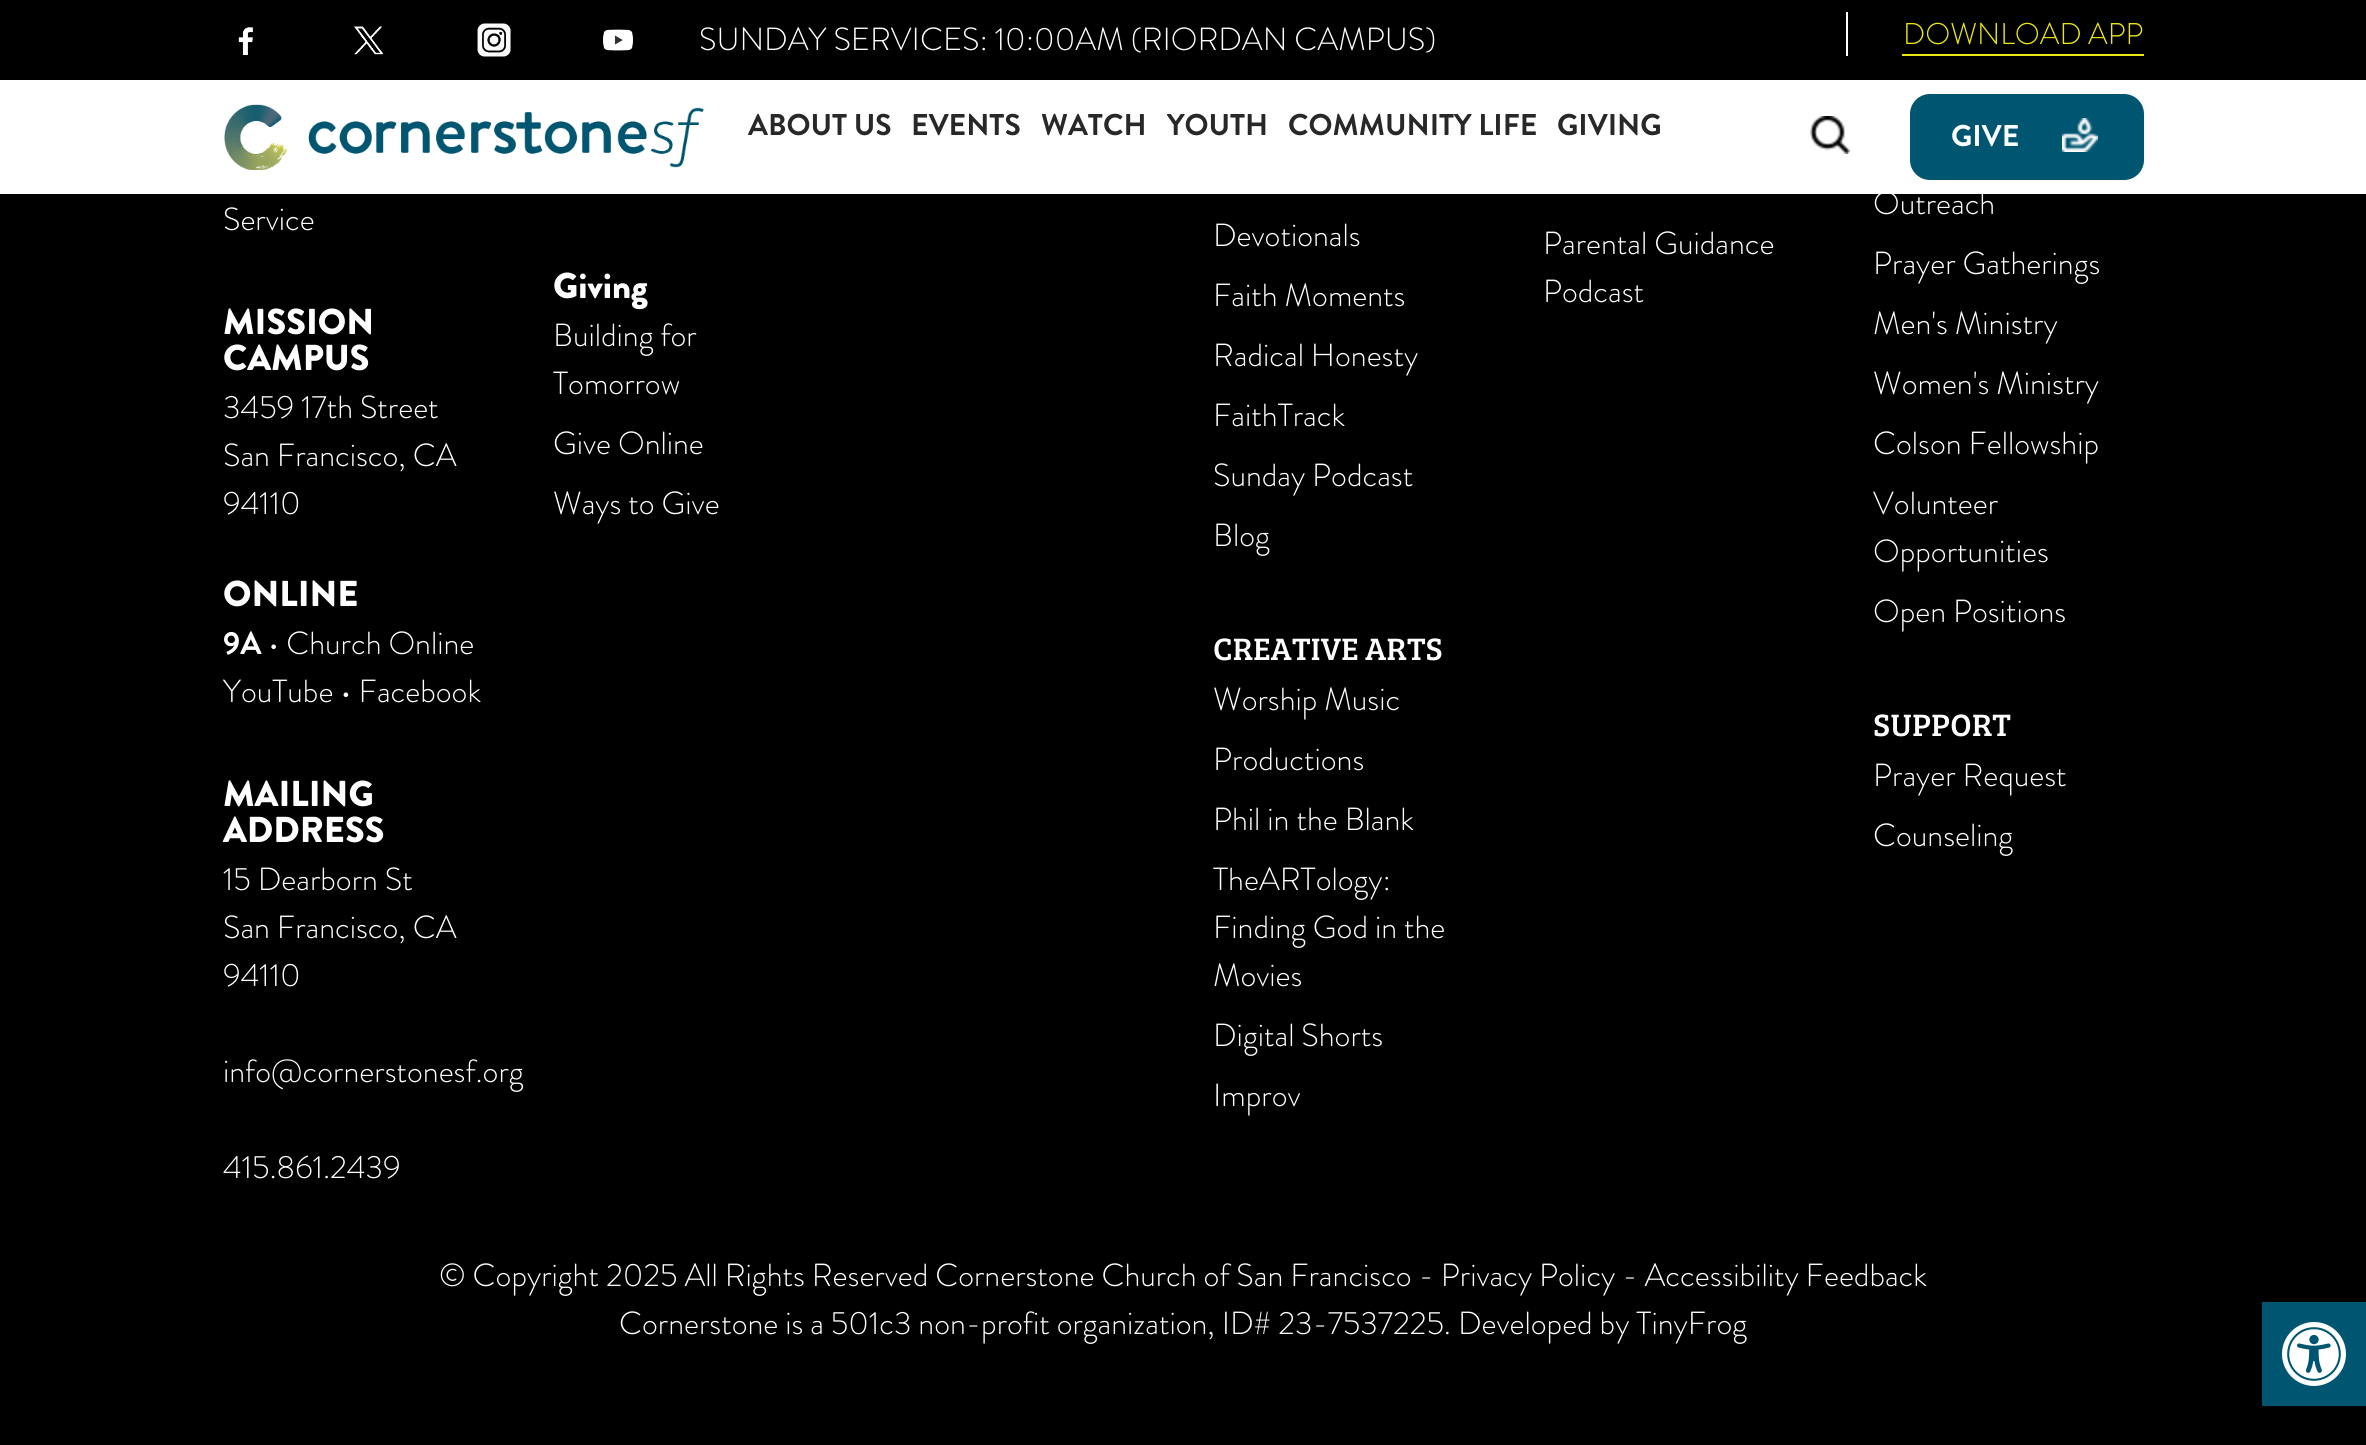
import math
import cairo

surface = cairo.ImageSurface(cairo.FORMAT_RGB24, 2366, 1445)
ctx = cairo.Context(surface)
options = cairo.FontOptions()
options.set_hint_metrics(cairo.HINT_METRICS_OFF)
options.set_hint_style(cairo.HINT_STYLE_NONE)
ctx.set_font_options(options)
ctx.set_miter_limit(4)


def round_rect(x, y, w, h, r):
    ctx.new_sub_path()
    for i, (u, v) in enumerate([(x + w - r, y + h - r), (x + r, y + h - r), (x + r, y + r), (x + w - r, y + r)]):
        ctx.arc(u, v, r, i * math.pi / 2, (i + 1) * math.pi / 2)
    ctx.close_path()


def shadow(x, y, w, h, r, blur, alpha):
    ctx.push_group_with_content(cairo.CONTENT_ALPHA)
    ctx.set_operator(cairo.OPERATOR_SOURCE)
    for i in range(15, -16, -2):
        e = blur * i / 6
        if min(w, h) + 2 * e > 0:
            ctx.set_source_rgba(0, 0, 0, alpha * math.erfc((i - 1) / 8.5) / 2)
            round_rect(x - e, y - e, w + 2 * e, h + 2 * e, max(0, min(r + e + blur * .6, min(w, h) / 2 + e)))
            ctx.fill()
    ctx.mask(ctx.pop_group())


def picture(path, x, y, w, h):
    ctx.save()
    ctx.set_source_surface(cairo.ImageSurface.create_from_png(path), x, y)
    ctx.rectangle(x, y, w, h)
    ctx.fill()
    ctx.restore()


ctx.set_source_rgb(0, 0, 0)
ctx.paint()
shadow(0, 38, 2366, 194, 0, 81, 0.08)
ctx.set_source_rgb(1, 1, 1)
ctx.rectangle(0, 80, 2366, 114)
ctx.fill()
picture("img1.png", 238, 27, 15, 29)
picture("img2.png", 354, 26, 30, 29)
picture("img3.png", 477, 23, 34, 34)
picture("img4.png", 603, 29, 30, 22)
ctx.select_font_face("Brandon Grotesque Light")
ctx.set_font_size(32)
ctx.move_to(699, 50)
ctx.show_text("SUNDAY SERVICES: 10:00AM (RIORDAN CAMPUS)")
ctx.rectangle(1846, 12, 2, 44)
ctx.fill()
ctx.set_source_rgb(0.918, 0.906, 0.09)
ctx.rectangle(1902, 54, 242, 2)
ctx.fill()
ctx.set_font_size(30)
ctx.move_to(1903, 44)
ctx.show_text("DOWNLOAD APP")
picture("img5.png", 224, 104, 480, 66)
ctx.select_font_face("Brandon Grotesque", cairo.FONT_SLANT_NORMAL, cairo.FONT_WEIGHT_BOLD)
ctx.set_source_rgb(0.157, 0.157, 0.157)
ctx.move_to(748, 135)
ctx.show_text("ABOUT US")
ctx.move_to(911, 135)
ctx.show_text("EVENTS")
ctx.move_to(1041, 135)
ctx.show_text("WATCH")
ctx.move_to(1167, 135)
ctx.show_text("YOUTH")
ctx.move_to(1288, 135)
ctx.show_text("COMMUNITY LIFE")
ctx.move_to(1557, 135)
ctx.show_text("GIVING")
picture("img6.png", 1810, 116, 40, 38)
ctx.set_source_rgb(0, 0.333, 0.439)
round_rect(1910, 94, 234, 86, 20)
ctx.fill()
ctx.set_source_rgb(1, 1, 1)
ctx.move_to(1951, 146)
ctx.show_text("GIVE")
picture("img7.png", 2062, 118, 36, 34)
ctx.select_font_face("Brandon Grotesque Light")
ctx.set_font_size(32)
ctx.move_to(223, 230)
ctx.show_text("Service")
ctx.select_font_face("Brandon Grotesque Black")
ctx.set_font_size(36)
ctx.move_to(223, 334)
ctx.show_text("MISSION")
ctx.move_to(223, 370)
ctx.show_text("CAMPUS")
ctx.select_font_face("Brandon Grotesque Light")
ctx.set_font_size(32)
ctx.move_to(223, 418)
ctx.show_text("3459 17th Street")
ctx.move_to(223, 466)
ctx.show_text("San Francisco, CA")
ctx.move_to(223, 514)
ctx.show_text("94110")
ctx.select_font_face("Brandon Grotesque Black")
ctx.set_font_size(36)
ctx.move_to(223, 606)
ctx.show_text("ONLINE")
ctx.select_font_face("Brandon Grotesque", cairo.FONT_SLANT_NORMAL, cairo.FONT_WEIGHT_BOLD)
ctx.set_font_size(32)
ctx.move_to(223, 654)
ctx.show_text("9A")
ctx.select_font_face("Brandon Grotesque Light")
ctx.move_to(268, 654)
ctx.show_text("• Church Online")
ctx.move_to(223, 702)
ctx.show_text("YouTube • Facebook")
ctx.select_font_face("Brandon Grotesque Black")
ctx.set_font_size(36)
ctx.move_to(223, 806)
ctx.show_text("MAILING")
ctx.move_to(223, 842)
ctx.show_text("ADDRESS")
ctx.select_font_face("Brandon Grotesque Light")
ctx.set_font_size(32)
ctx.move_to(223, 890)
ctx.show_text("15 Dearborn St")
ctx.move_to(223, 938)
ctx.show_text("San Francisco, CA")
ctx.move_to(223, 986)
ctx.show_text("94110")
ctx.move_to(223, 1082)
ctx.show_text("info@cornerstonesf.org")
ctx.move_to(223, 1178)
ctx.show_text("415.861.2439")
ctx.select_font_face("Brandon Grotesque Black")
ctx.set_font_size(36)
ctx.move_to(553, 298)
ctx.show_text("Giving")
ctx.select_font_face("Brandon Grotesque Light")
ctx.set_font_size(32)
ctx.move_to(553, 346)
ctx.show_text("Building for")
ctx.move_to(553, 394)
ctx.show_text("Tomorrow")
ctx.move_to(553, 454)
ctx.show_text("Give Online")
ctx.move_to(553, 514)
ctx.show_text("Ways to Give")
ctx.move_to(1213, 246)
ctx.show_text("Devotionals")
ctx.move_to(1213, 306)
ctx.show_text("Faith Moments")
ctx.move_to(1213, 366)
ctx.show_text("Radical Honesty")
ctx.move_to(1213, 426)
ctx.show_text("FaithTrack")
ctx.move_to(1213, 486)
ctx.show_text("Sunday Podcast")
ctx.move_to(1213, 546)
ctx.show_text("Blog")
ctx.select_font_face("Bree Serif")
ctx.move_to(1213, 660)
ctx.show_text("CREATIVE ARTS")
ctx.select_font_face("Brandon Grotesque Light")
ctx.move_to(1213, 710)
ctx.show_text("Worship Music")
ctx.move_to(1213, 770)
ctx.show_text("Productions")
ctx.move_to(1213, 830)
ctx.show_text("Phil in the Blank")
ctx.move_to(1213, 890)
ctx.show_text("TheARTology:")
ctx.move_to(1213, 938)
ctx.show_text("Finding God in the")
ctx.move_to(1213, 986)
ctx.show_text("Movies")
ctx.move_to(1213, 1046)
ctx.show_text("Digital Shorts")
ctx.move_to(1213, 1106)
ctx.show_text("Improv")
ctx.move_to(1543, 254)
ctx.show_text("Parental Guidance")
ctx.move_to(1543, 302)
ctx.show_text("Podcast")
ctx.move_to(1873, 214)
ctx.show_text("Outreach")
ctx.move_to(1873, 274)
ctx.show_text("Prayer Gatherings")
ctx.move_to(1873, 334)
ctx.show_text("Men's Ministry")
ctx.move_to(1873, 394)
ctx.show_text("Women's Ministry")
ctx.move_to(1873, 454)
ctx.show_text("Colson Fellowship")
ctx.move_to(1873, 514)
ctx.show_text("Volunteer")
ctx.move_to(1873, 562)
ctx.show_text("Opportunities")
ctx.move_to(1873, 622)
ctx.show_text("Open Positions")
ctx.select_font_face("Bree Serif")
ctx.move_to(1873, 736)
ctx.show_text("SUPPORT")
ctx.select_font_face("Brandon Grotesque Light")
ctx.move_to(1873, 786)
ctx.show_text("Prayer Request")
ctx.move_to(1873, 846)
ctx.show_text("Counseling")
ctx.move_to(439, 1286)
ctx.show_text("© Copyright 2025 All Rights Reserved Cornerstone Church of San Francisco - Privacy Policy - Accessibility Feedback")
ctx.move_to(619, 1334)
ctx.show_text("Cornerstone is a 501c3 non-profit organization, ID# 23-7537225. Developed by TinyFrog")
ctx.set_source_rgb(0, 0.333, 0.439)
ctx.rectangle(2262, 1302, 104, 104)
ctx.fill()
picture("img8.png", 2282, 1322, 64, 64)
surface.write_to_png("page.png")
